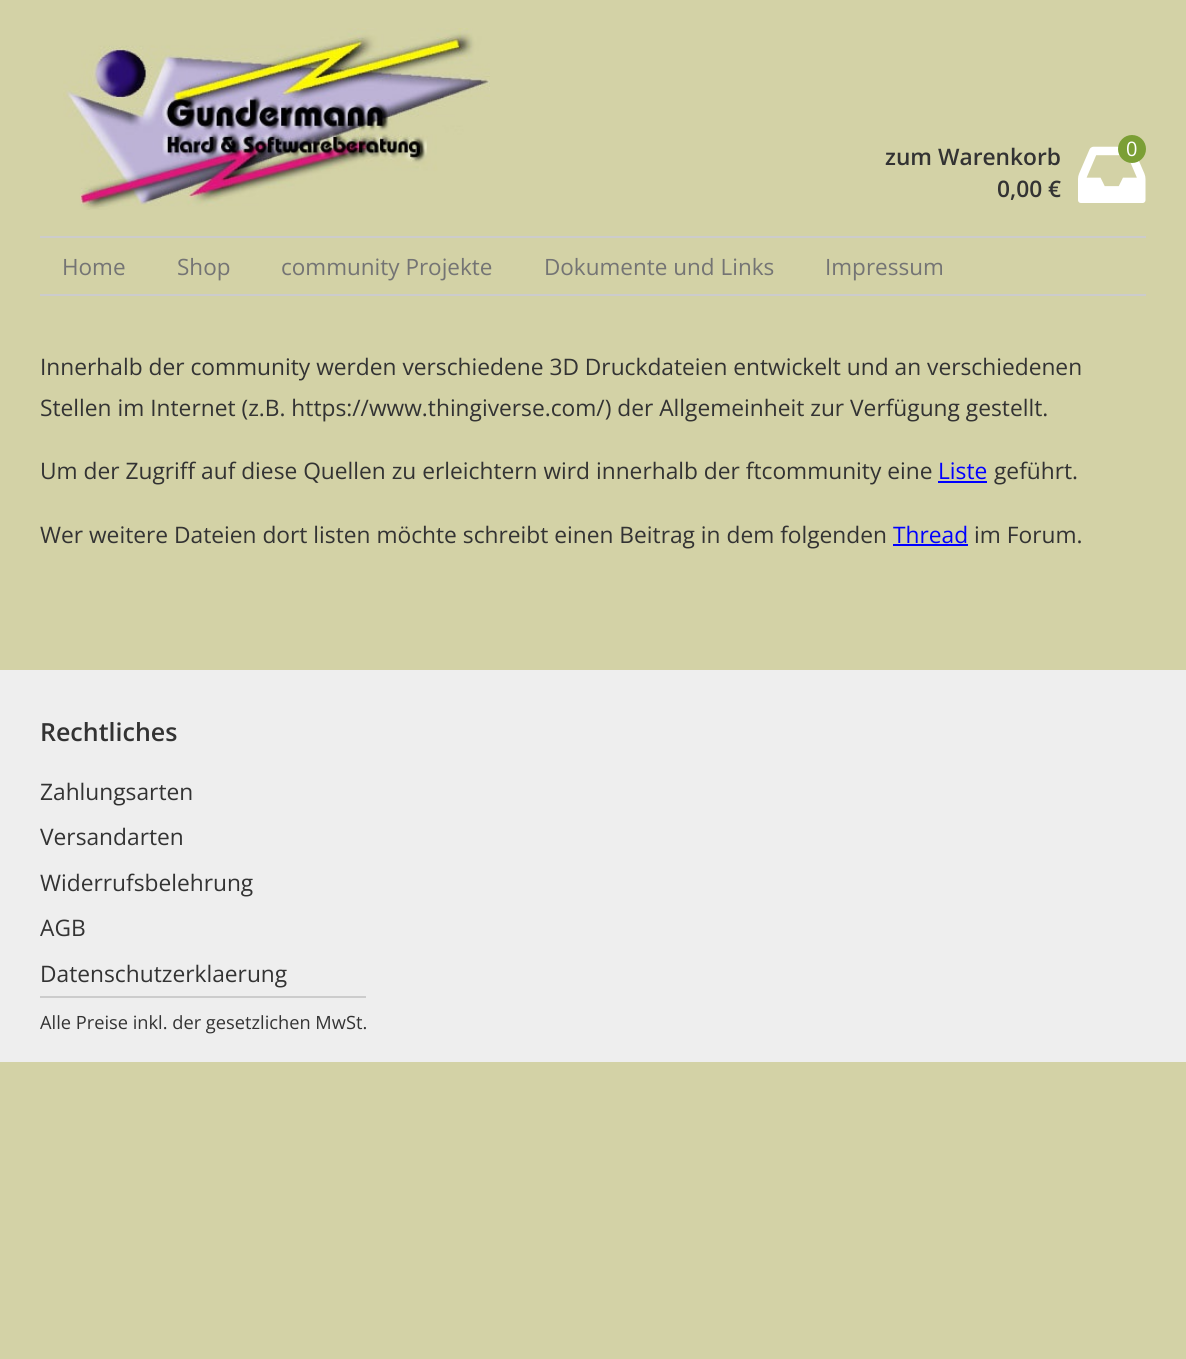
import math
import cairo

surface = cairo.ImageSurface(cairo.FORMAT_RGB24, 1186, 1359)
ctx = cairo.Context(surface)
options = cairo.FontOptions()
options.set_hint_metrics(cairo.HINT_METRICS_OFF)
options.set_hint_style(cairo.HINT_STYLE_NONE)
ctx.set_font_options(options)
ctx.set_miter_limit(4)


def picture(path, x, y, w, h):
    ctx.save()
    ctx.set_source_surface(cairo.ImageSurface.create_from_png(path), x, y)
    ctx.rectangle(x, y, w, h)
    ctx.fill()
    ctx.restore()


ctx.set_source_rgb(0.827, 0.824, 0.651)
ctx.paint()
picture("img1.png", 63, 28, 427, 182)
ctx.select_font_face("Open Sans SemiBold")
ctx.set_font_size(22.75)
ctx.set_source_rgb(0.2, 0.2, 0.2)
ctx.move_to(885, 165)
ctx.show_text("zum Warenkorb")
ctx.move_to(997, 197)
ctx.show_text("0,00 €")
picture("img2.png", 1078, 146, 68, 57)
ctx.set_source_rgb(0.482, 0.624, 0.208)
ctx.arc(1132, 149, 14, 0, 2 * math.pi)
ctx.fill()
ctx.select_font_face("Open Sans")
ctx.set_font_size(20)
ctx.set_source_rgb(1, 1, 1)
ctx.move_to(1126, 156)
ctx.show_text("0")
ctx.set_source_rgb(0.8, 0.8, 0.8)
ctx.rectangle(40, 236, 1106, 2)
ctx.fill()
ctx.rectangle(40, 294, 1106, 2)
ctx.fill()
ctx.set_font_size(22.5)
ctx.set_source_rgb(0.455, 0.455, 0.455)
ctx.move_to(62, 275)
ctx.show_text("Home")
ctx.move_to(177, 275)
ctx.show_text("Shop")
ctx.move_to(281, 275)
ctx.show_text("community Projekte")
ctx.move_to(544, 275)
ctx.show_text("Dokumente und Links")
ctx.move_to(825, 275)
ctx.show_text("Impressum")
ctx.set_font_size(22.75)
ctx.set_source_rgb(0.2, 0.2, 0.2)
ctx.move_to(40, 375)
ctx.show_text("Innerhalb der community werden verschiedene 3D Druckdateien entwickelt und an verschiedenen")
ctx.move_to(40, 416)
ctx.show_text("Stellen im Internet (z.B. https://www.thingiverse.com/) der Allgemeinheit zur Verfügung gestellt.")
ctx.move_to(40, 479)
ctx.show_text("Um der Zugriff auf diese Quellen zu erleichtern wird innerhalb der ftcommunity eine")
ctx.set_source_rgb(0, 0, 1)
ctx.move_to(938, 479)
ctx.show_text("Liste")
ctx.rectangle(938, 481, 49, 2)
ctx.fill()
ctx.set_source_rgb(0.2, 0.2, 0.2)
ctx.move_to(994, 479)
ctx.show_text("geführt.")
ctx.move_to(40, 543)
ctx.show_text("Wer weitere Dateien dort listen möchte schreibt einen Beitrag in dem folgenden")
ctx.set_source_rgb(0, 0, 1)
ctx.move_to(893, 543)
ctx.show_text("Thread")
ctx.rectangle(893, 544, 75, 2)
ctx.fill()
ctx.set_source_rgb(0.2, 0.2, 0.2)
ctx.move_to(974, 543)
ctx.show_text("im Forum.")
ctx.set_source_rgb(0.933, 0.933, 0.933)
ctx.rectangle(0, 670, 1186, 392)
ctx.fill()
ctx.select_font_face("Open Sans SemiBold")
ctx.set_font_size(25)
ctx.set_source_rgb(0.2, 0.2, 0.2)
ctx.move_to(40, 741)
ctx.show_text("Rechtliches")
ctx.select_font_face("Open Sans")
ctx.set_font_size(22.75)
ctx.move_to(40, 800)
ctx.show_text("Zahlungsarten")
ctx.move_to(40, 845)
ctx.show_text("Versandarten")
ctx.move_to(40, 891)
ctx.show_text("Widerrufsbelehrung")
ctx.move_to(40, 936)
ctx.show_text("AGB")
ctx.move_to(40, 982)
ctx.show_text("Datenschutzerklaerung")
ctx.set_source_rgb(0.8, 0.8, 0.8)
ctx.rectangle(40, 996, 326, 2)
ctx.fill()
ctx.set_font_size(18.25)
ctx.set_source_rgb(0.2, 0.2, 0.2)
ctx.move_to(40, 1029)
ctx.show_text("Alle Preise inkl. der gesetzlichen MwSt.")
surface.write_to_png("page.png")
